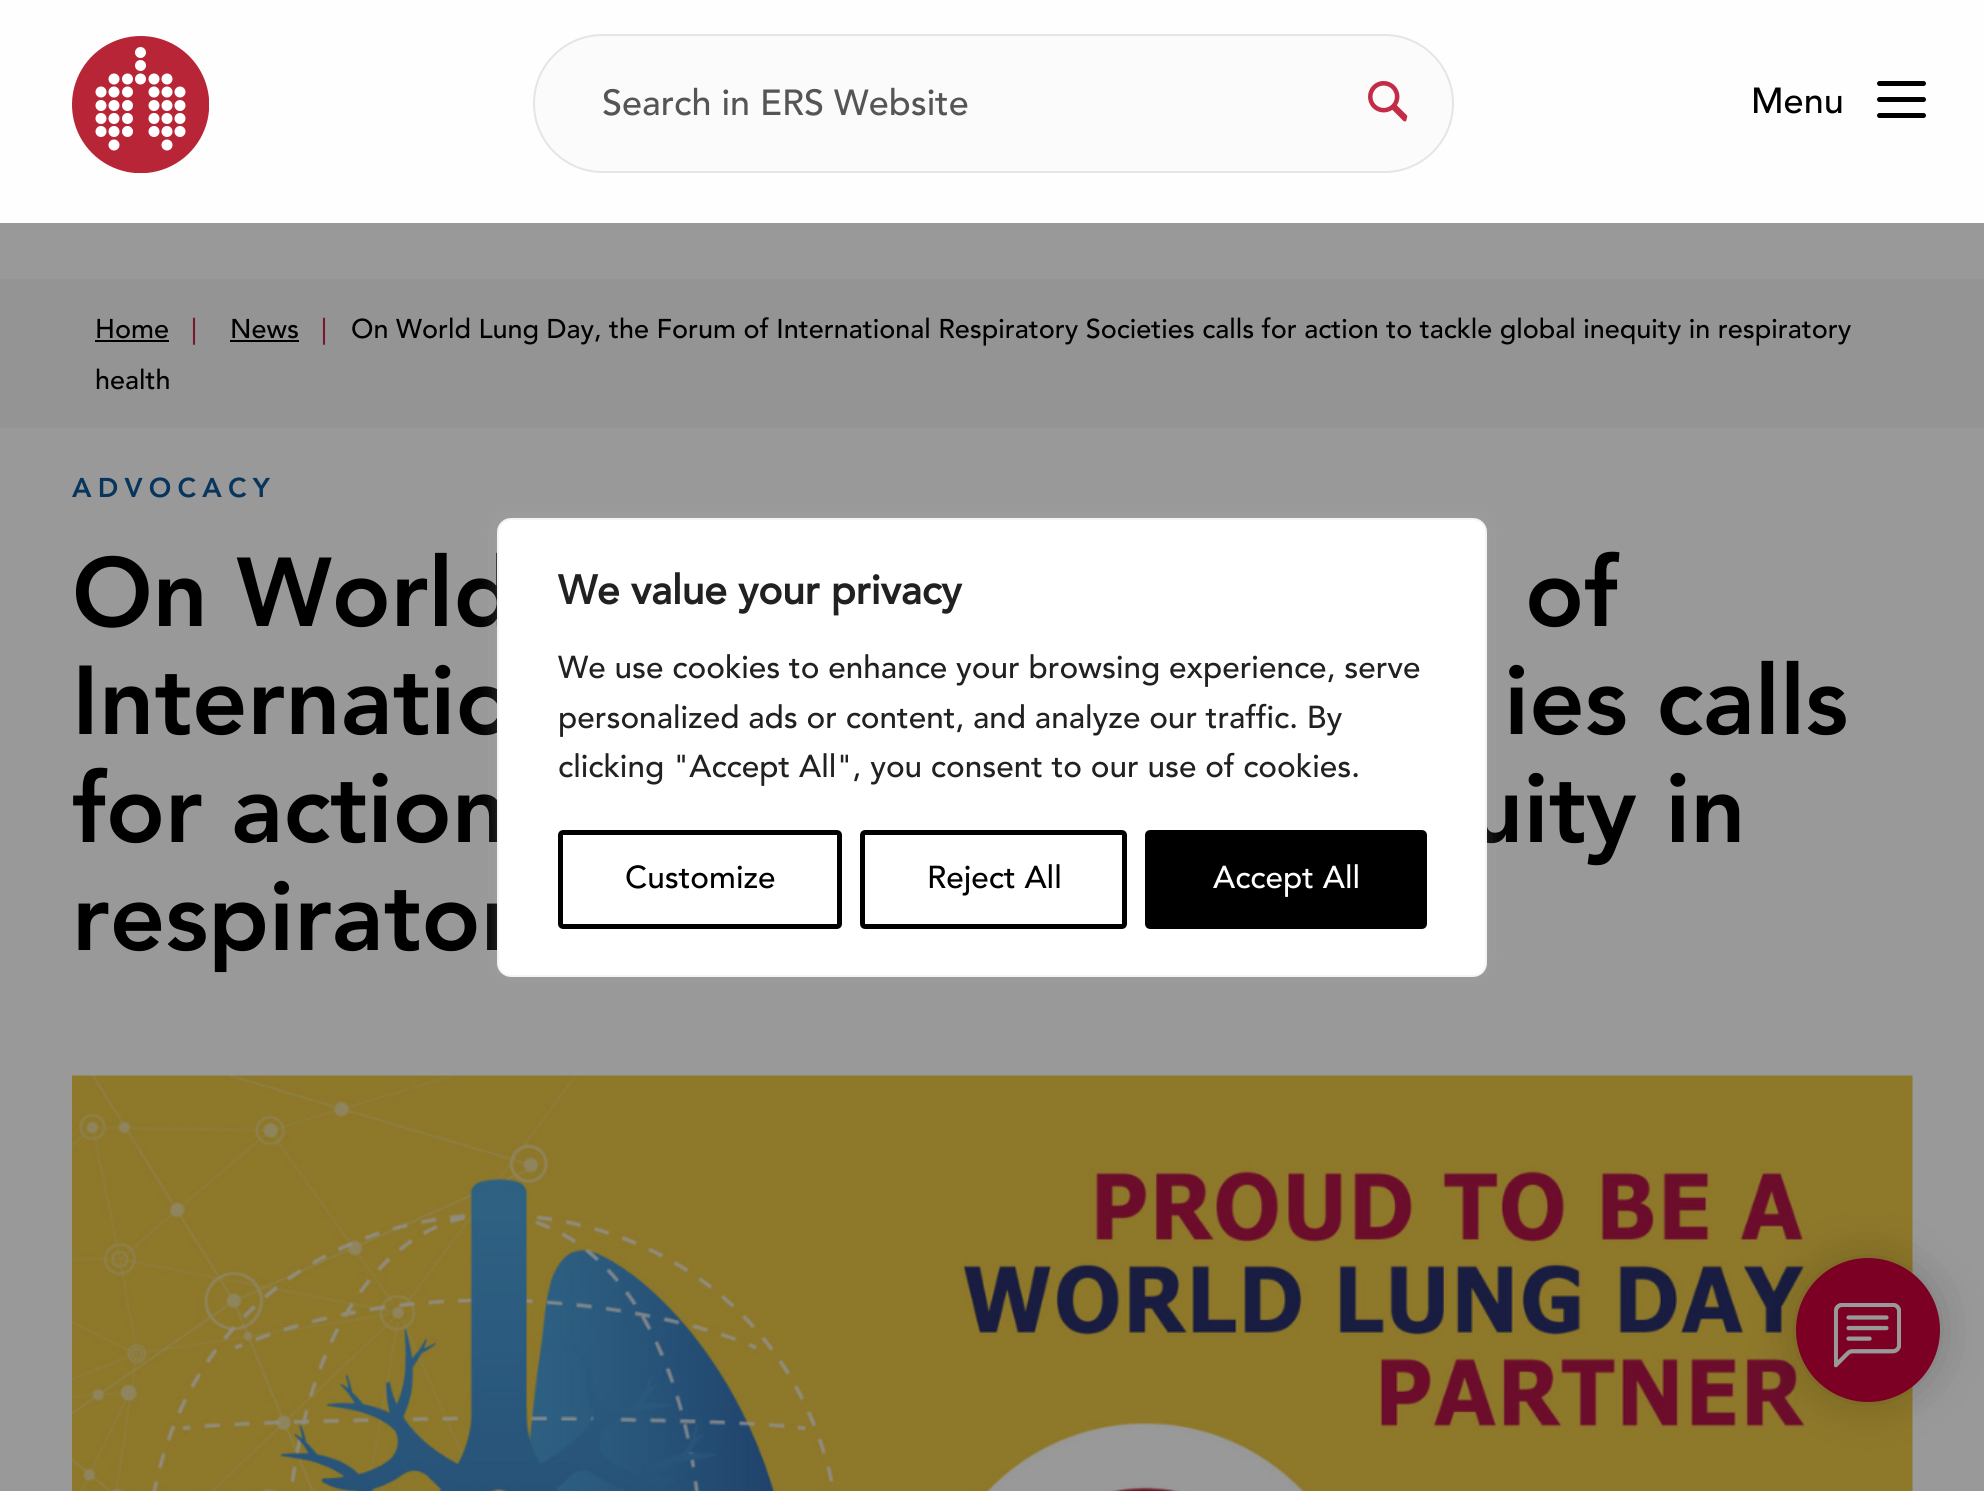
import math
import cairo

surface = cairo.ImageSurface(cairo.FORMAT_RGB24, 1984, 1491)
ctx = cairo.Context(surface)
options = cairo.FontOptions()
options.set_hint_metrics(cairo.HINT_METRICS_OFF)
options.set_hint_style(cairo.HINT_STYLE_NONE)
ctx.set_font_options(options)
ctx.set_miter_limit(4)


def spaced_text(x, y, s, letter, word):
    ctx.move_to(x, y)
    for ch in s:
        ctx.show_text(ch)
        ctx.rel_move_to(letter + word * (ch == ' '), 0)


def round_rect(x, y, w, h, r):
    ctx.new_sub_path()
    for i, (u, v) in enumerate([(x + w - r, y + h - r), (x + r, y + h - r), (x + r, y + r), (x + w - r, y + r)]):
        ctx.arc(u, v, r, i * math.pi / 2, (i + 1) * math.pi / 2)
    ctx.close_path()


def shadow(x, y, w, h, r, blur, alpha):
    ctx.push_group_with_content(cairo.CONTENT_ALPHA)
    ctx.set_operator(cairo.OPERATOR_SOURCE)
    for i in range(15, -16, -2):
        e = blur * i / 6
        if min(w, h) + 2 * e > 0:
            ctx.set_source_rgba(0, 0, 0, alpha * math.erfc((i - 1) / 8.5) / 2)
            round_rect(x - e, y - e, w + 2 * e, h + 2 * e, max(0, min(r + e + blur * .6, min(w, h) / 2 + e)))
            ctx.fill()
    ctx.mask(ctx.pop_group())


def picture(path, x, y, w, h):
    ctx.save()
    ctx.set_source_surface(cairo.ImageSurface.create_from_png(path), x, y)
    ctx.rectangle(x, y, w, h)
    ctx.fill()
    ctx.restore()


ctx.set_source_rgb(0.6, 0.6, 0.6)
ctx.paint()
ctx.set_source_rgb(0.996, 0.996, 0.996)
ctx.rectangle(0, 0, 1984, 223)
ctx.fill()
picture("img1.png", 72, 36, 137, 137)
ctx.set_source_rgb(0.984, 0.984, 0.984)
round_rect(534, 35, 919, 137, 68.5)
ctx.fill_preserve()
ctx.set_source_rgb(0.894, 0.898, 0.914)
ctx.stroke()
ctx.select_font_face("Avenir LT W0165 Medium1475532 Medium")
ctx.set_font_size(36)
ctx.set_source_rgb(0.333, 0.333, 0.333)
ctx.move_to(602, 115)
ctx.show_text("Search in ERS Website")
picture("img2.png", 1368, 81, 40, 41)
ctx.set_source_rgb(0, 0, 0)
ctx.move_to(1751, 113)
ctx.show_text("Menu")
round_rect(1877, 97, 49, 5, 2.5)
ctx.fill()
round_rect(1877, 81, 49, 5, 2.5)
ctx.fill()
round_rect(1877, 113, 49, 5, 2.5)
ctx.fill()
ctx.set_source_rgb(0.58, 0.58, 0.58)
ctx.rectangle(0, 279, 1984, 149)
ctx.fill()
ctx.set_font_size(27)
ctx.set_source_rgb(0, 0, 0)
ctx.move_to(95, 338)
ctx.show_text("Home")
ctx.rectangle(95, 340, 74, 2)
ctx.fill()
ctx.set_source_rgb(0.459, 0.102, 0.169)
ctx.move_to(191, 338)
ctx.show_text("|")
ctx.set_source_rgb(0, 0, 0)
ctx.move_to(230, 338)
ctx.show_text("News")
ctx.rectangle(230, 340, 69, 2)
ctx.fill()
ctx.set_source_rgb(0.459, 0.102, 0.169)
ctx.move_to(321, 338)
ctx.show_text("|")
ctx.set_source_rgb(0, 0, 0)
ctx.move_to(351, 338)
ctx.show_text("On World Lung Day, the Forum of International Respiratory Societies calls for action to tackle global inequity in respiratory")
ctx.move_to(95, 389)
ctx.show_text("health")
ctx.select_font_face("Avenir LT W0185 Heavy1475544 Black")
ctx.set_source_rgb(0.035, 0.208, 0.361)
spaced_text(72, 497, "ADVOCACY", 6.25, 0)
ctx.set_font_size(96.75)
ctx.set_source_rgb(0, 0, 0)
ctx.move_to(72, 626)
ctx.show_text("On World")
ctx.move_to(1525, 626)
ctx.show_text("of")
ctx.move_to(72, 734)
ctx.show_text("Internatio")
ctx.move_to(1504, 734)
ctx.show_text("ies calls")
ctx.move_to(72, 842)
ctx.show_text("for action")
ctx.move_to(1468, 842)
ctx.show_text("uity in")
ctx.move_to(72, 950)
ctx.show_text("respirator")
picture("img3.png", 72, 1075, 1841, 416)
ctx.set_source_rgb(0.675, 0.671, 0.671)
shadow(497, 515, 990, 459, 14, 11, 0.3)
ctx.set_source_rgb(1, 1, 1)
round_rect(498, 519, 988, 457, 13)
ctx.fill_preserve()
ctx.set_source_rgb(0.957, 0.957, 0.957)
ctx.stroke()
ctx.select_font_face("Avenir LT W0165 Medium1475532", cairo.FONT_SLANT_NORMAL, cairo.FONT_WEIGHT_BOLD)
ctx.set_font_size(40.5)
ctx.set_source_rgb(0.129, 0.129, 0.129)
ctx.move_to(558, 604)
ctx.show_text("We value your privacy")
ctx.select_font_face("Avenir LT W0165 Medium1475532 Medium")
ctx.set_font_size(31.5)
ctx.move_to(558, 678)
ctx.show_text("We use cookies to enhance your browsing experience, serve")
ctx.move_to(558, 728)
ctx.show_text("personalized ads or content, and analyze our traffic. By")
ctx.move_to(558, 777)
ctx.show_text("clicking \"Accept All\", you consent to our use of cookies.")
round_rect(560.5, 832.5, 279, 94, 2.5)
ctx.set_source_rgb(0, 0, 0)
ctx.set_line_width(5)
ctx.stroke()
ctx.move_to(625, 888)
ctx.show_text("Customize")
round_rect(862.5, 832.5, 262, 94, 2.5)
ctx.stroke()
ctx.move_to(927, 888)
ctx.show_text("Reject All")
round_rect(1147.5, 832.5, 277, 94, 2.5)
ctx.fill_preserve()
ctx.stroke()
ctx.set_source_rgb(1, 1, 1)
ctx.move_to(1213, 888)
ctx.show_text("Accept All")
ctx.set_source_rgb(0, 0, 0)
shadow(1796, 1258, 144, 144, 72, 22.5, 0.2)
ctx.set_source_rgb(0.486, 0, 0.137)
ctx.arc(1868, 1330, 69.5, 0, 2 * math.pi)
ctx.fill_preserve()
ctx.stroke()
picture("img4.png", 1834, 1303, 67, 65)
surface.write_to_png("page.png")
